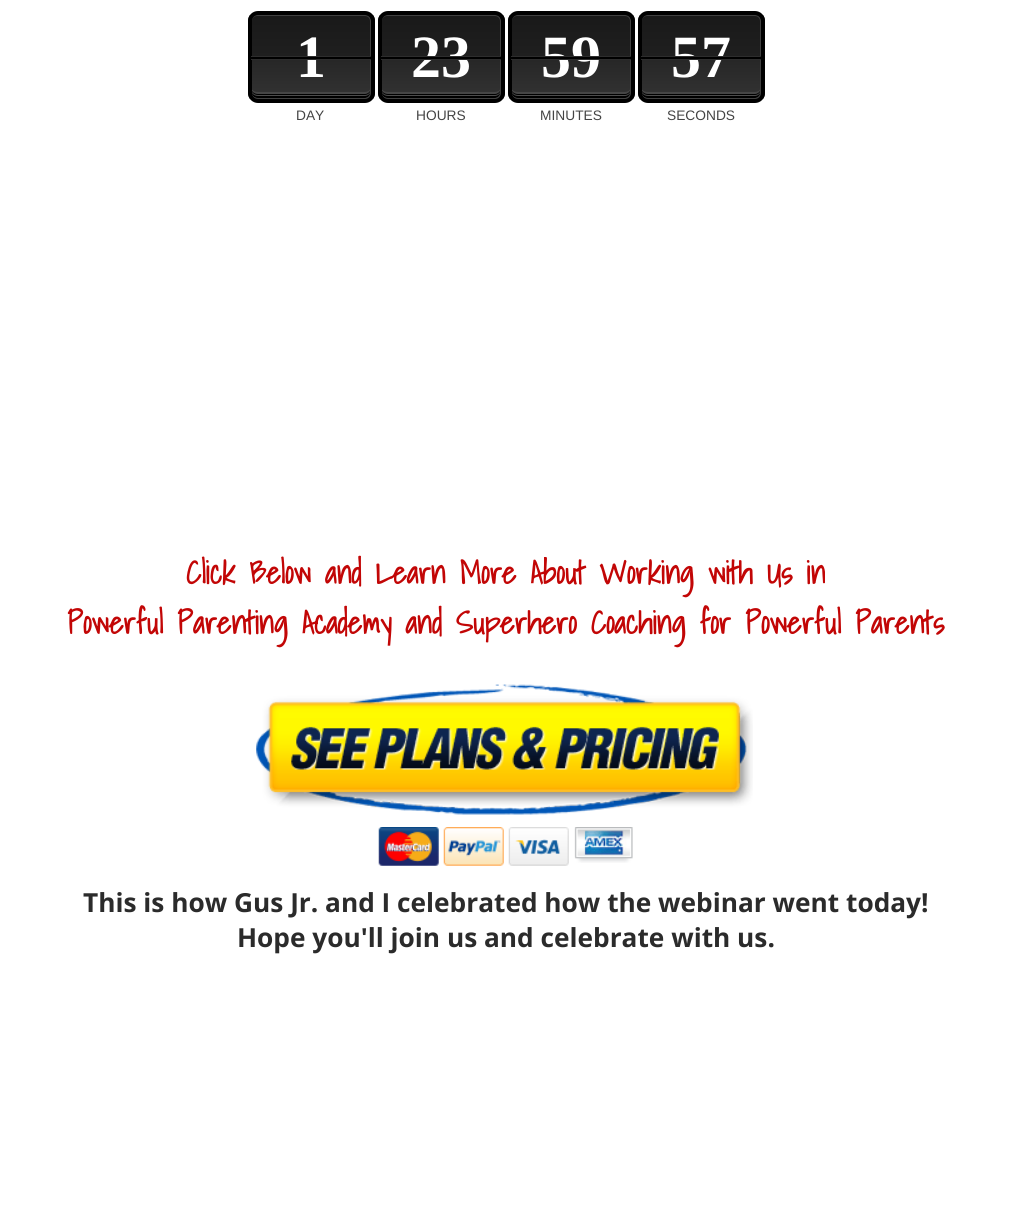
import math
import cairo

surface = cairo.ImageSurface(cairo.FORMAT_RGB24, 1011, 1232)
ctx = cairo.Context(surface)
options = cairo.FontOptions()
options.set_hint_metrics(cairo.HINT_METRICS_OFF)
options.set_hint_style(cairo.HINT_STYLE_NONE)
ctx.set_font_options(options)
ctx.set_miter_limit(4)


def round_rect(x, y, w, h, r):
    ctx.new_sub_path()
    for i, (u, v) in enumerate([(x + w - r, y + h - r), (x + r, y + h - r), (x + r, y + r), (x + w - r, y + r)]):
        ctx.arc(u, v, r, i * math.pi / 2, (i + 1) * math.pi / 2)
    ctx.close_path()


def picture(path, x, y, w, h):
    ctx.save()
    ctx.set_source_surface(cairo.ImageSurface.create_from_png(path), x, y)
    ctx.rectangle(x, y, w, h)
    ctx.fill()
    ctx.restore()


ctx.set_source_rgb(1, 1, 1)
ctx.paint()
ctx.save()
round_rect(248, 11, 127, 92, 10)
ctx.clip()
gradient = cairo.LinearGradient(311, 15, 311, 99)
gradient.add_color_stop_rgba(0, 0.098, 0.098, 0.098, 1)
gradient.add_color_stop_rgba(0.5, 0.122, 0.122, 0.122, 1)
gradient.add_color_stop_rgba(0.5, 0.149, 0.149, 0.149, 1)
gradient.add_color_stop_rgba(1, 0.2, 0.2, 0.2, 1)
ctx.set_source(gradient)
ctx.rectangle(248, 15, 127, 84)
ctx.fill()
ctx.restore()
ctx.set_source_rgba(1, 1, 1, 0.1)
ctx.new_path()
ctx.move_to(251, 86)
ctx.line_to(251, 93)
ctx.curve_to(251, 96, 254, 99, 257, 99)
ctx.line_to(365, 99)
ctx.curve_to(368, 99, 371, 96, 371, 93)
ctx.line_to(371, 86)
ctx.curve_to(371, 90, 368, 92, 365, 92)
ctx.line_to(258, 92)
ctx.curve_to(254, 92, 251, 90, 251, 86)
ctx.close_path()
ctx.fill()
ctx.set_source_rgb(0, 0, 0)
ctx.new_path()
ctx.move_to(251, 88)
ctx.line_to(251, 93)
ctx.curve_to(251, 96, 254, 99, 257, 99)
ctx.line_to(365, 99)
ctx.curve_to(368, 99, 371, 96, 371, 93)
ctx.line_to(371, 88)
ctx.curve_to(371, 91, 368, 94, 365, 94)
ctx.line_to(258, 94)
ctx.curve_to(254, 94, 251, 91, 251, 88)
ctx.close_path()
ctx.fill()
ctx.set_source_rgba(1, 1, 1, 0.3)
ctx.new_path()
ctx.move_to(251, 89)
ctx.line_to(251, 93)
ctx.curve_to(251, 96, 254, 99, 257, 99)
ctx.line_to(365, 99)
ctx.curve_to(368, 99, 371, 96, 371, 93)
ctx.line_to(371, 89)
ctx.curve_to(371, 92, 368, 95, 365, 95)
ctx.line_to(258, 95)
ctx.curve_to(254, 95, 251, 92, 251, 89)
ctx.close_path()
ctx.fill()
ctx.set_source_rgb(0, 0, 0)
ctx.new_path()
ctx.move_to(251, 90)
ctx.line_to(251, 93)
ctx.curve_to(251, 96, 254, 99, 257, 99)
ctx.line_to(365, 99)
ctx.curve_to(368, 99, 371, 96, 371, 93)
ctx.line_to(371, 90)
ctx.curve_to(371, 93, 368, 96, 365, 96)
ctx.line_to(258, 96)
ctx.curve_to(254, 96, 251, 93, 251, 90)
ctx.close_path()
ctx.fill()
ctx.set_source_rgba(1, 1, 1, 0.3)
ctx.new_path()
ctx.move_to(251, 91)
ctx.line_to(251, 93)
ctx.curve_to(251, 96, 254, 99, 257, 99)
ctx.line_to(365, 99)
ctx.curve_to(368, 99, 371, 96, 371, 93)
ctx.line_to(371, 91)
ctx.curve_to(371, 95, 368, 98, 365, 98)
ctx.line_to(258, 98)
ctx.curve_to(254, 98, 251, 95, 251, 91)
ctx.close_path()
ctx.fill()
round_rect(251.5, 15.5, 119, 83, 5.5)
ctx.set_source_rgb(0.251, 0.251, 0.251)
ctx.set_line_width(1)
ctx.stroke()
round_rect(250, 13, 123, 88, 8)
ctx.set_source_rgb(0, 0, 0)
ctx.set_line_width(4)
ctx.stroke()
ctx.select_font_face("Liberation Serif", cairo.FONT_SLANT_NORMAL, cairo.FONT_WEIGHT_BOLD)
ctx.set_font_size(60)
ctx.set_source_rgb(1, 1, 1)
ctx.move_to(296, 77)
ctx.show_text("1")
ctx.set_source_rgb(0, 0, 0)
ctx.rectangle(251, 57, 120, 2)
ctx.fill()
ctx.set_source_rgb(0.176, 0.176, 0.176)
ctx.rectangle(251, 56, 120, 1)
ctx.fill()
ctx.rectangle(251, 59, 120, 1)
ctx.fill()
ctx.select_font_face("Liberation Sans")
ctx.set_font_size(13.75)
ctx.set_source_rgb(0.267, 0.267, 0.267)
ctx.move_to(296, 120)
ctx.show_text("DAY")
ctx.save()
round_rect(378, 11, 127, 92, 10)
ctx.clip()
gradient = cairo.LinearGradient(441, 15, 441, 99)
gradient.add_color_stop_rgba(0, 0.098, 0.098, 0.098, 1)
gradient.add_color_stop_rgba(0.5, 0.122, 0.122, 0.122, 1)
gradient.add_color_stop_rgba(0.5, 0.149, 0.149, 0.149, 1)
gradient.add_color_stop_rgba(1, 0.2, 0.2, 0.2, 1)
ctx.set_source(gradient)
ctx.rectangle(378, 15, 127, 84)
ctx.fill()
ctx.restore()
ctx.set_source_rgba(1, 1, 1, 0.1)
ctx.new_path()
ctx.move_to(381, 86)
ctx.line_to(381, 93)
ctx.curve_to(381, 96, 384, 99, 387, 99)
ctx.line_to(495, 99)
ctx.curve_to(498, 99, 501, 96, 501, 93)
ctx.line_to(501, 86)
ctx.curve_to(501, 90, 498, 92, 495, 92)
ctx.line_to(388, 92)
ctx.curve_to(384, 92, 381, 90, 381, 86)
ctx.close_path()
ctx.fill()
ctx.set_source_rgb(0, 0, 0)
ctx.new_path()
ctx.move_to(381, 88)
ctx.line_to(381, 93)
ctx.curve_to(381, 96, 384, 99, 387, 99)
ctx.line_to(495, 99)
ctx.curve_to(498, 99, 501, 96, 501, 93)
ctx.line_to(501, 88)
ctx.curve_to(501, 91, 498, 94, 495, 94)
ctx.line_to(388, 94)
ctx.curve_to(384, 94, 381, 91, 381, 88)
ctx.close_path()
ctx.fill()
ctx.set_source_rgba(1, 1, 1, 0.3)
ctx.new_path()
ctx.move_to(381, 89)
ctx.line_to(381, 93)
ctx.curve_to(381, 96, 384, 99, 387, 99)
ctx.line_to(495, 99)
ctx.curve_to(498, 99, 501, 96, 501, 93)
ctx.line_to(501, 89)
ctx.curve_to(501, 92, 498, 95, 495, 95)
ctx.line_to(388, 95)
ctx.curve_to(384, 95, 381, 92, 381, 89)
ctx.close_path()
ctx.fill()
ctx.set_source_rgb(0, 0, 0)
ctx.new_path()
ctx.move_to(381, 90)
ctx.line_to(381, 93)
ctx.curve_to(381, 96, 384, 99, 387, 99)
ctx.line_to(495, 99)
ctx.curve_to(498, 99, 501, 96, 501, 93)
ctx.line_to(501, 90)
ctx.curve_to(501, 93, 498, 96, 495, 96)
ctx.line_to(388, 96)
ctx.curve_to(384, 96, 381, 93, 381, 90)
ctx.close_path()
ctx.fill()
ctx.set_source_rgba(1, 1, 1, 0.3)
ctx.new_path()
ctx.move_to(381, 91)
ctx.line_to(381, 93)
ctx.curve_to(381, 96, 384, 99, 387, 99)
ctx.line_to(495, 99)
ctx.curve_to(498, 99, 501, 96, 501, 93)
ctx.line_to(501, 91)
ctx.curve_to(501, 95, 498, 98, 495, 98)
ctx.line_to(388, 98)
ctx.curve_to(384, 98, 381, 95, 381, 91)
ctx.close_path()
ctx.fill()
round_rect(381.5, 15.5, 119, 83, 5.5)
ctx.set_source_rgb(0.251, 0.251, 0.251)
ctx.set_line_width(1)
ctx.stroke()
round_rect(380, 13, 123, 88, 8)
ctx.set_source_rgb(0, 0, 0)
ctx.set_line_width(4)
ctx.stroke()
ctx.select_font_face("Liberation Serif", cairo.FONT_SLANT_NORMAL, cairo.FONT_WEIGHT_BOLD)
ctx.set_font_size(60)
ctx.set_source_rgb(1, 1, 1)
ctx.move_to(411, 77)
ctx.show_text("23")
ctx.set_source_rgb(0, 0, 0)
ctx.rectangle(381, 57, 120, 2)
ctx.fill()
ctx.set_source_rgb(0.176, 0.176, 0.176)
ctx.rectangle(381, 56, 120, 1)
ctx.fill()
ctx.rectangle(381, 59, 120, 1)
ctx.fill()
ctx.select_font_face("Liberation Sans")
ctx.set_font_size(13.75)
ctx.set_source_rgb(0.267, 0.267, 0.267)
ctx.move_to(416, 120)
ctx.show_text("HOURS")
ctx.save()
round_rect(508, 11, 127, 92, 10)
ctx.clip()
gradient = cairo.LinearGradient(571, 15, 571, 99)
gradient.add_color_stop_rgba(0, 0.098, 0.098, 0.098, 1)
gradient.add_color_stop_rgba(0.5, 0.122, 0.122, 0.122, 1)
gradient.add_color_stop_rgba(0.5, 0.149, 0.149, 0.149, 1)
gradient.add_color_stop_rgba(1, 0.2, 0.2, 0.2, 1)
ctx.set_source(gradient)
ctx.rectangle(508, 15, 127, 84)
ctx.fill()
ctx.restore()
ctx.set_source_rgba(1, 1, 1, 0.1)
ctx.new_path()
ctx.move_to(511, 86)
ctx.line_to(511, 93)
ctx.curve_to(511, 96, 514, 99, 517, 99)
ctx.line_to(625, 99)
ctx.curve_to(628, 99, 631, 96, 631, 93)
ctx.line_to(631, 86)
ctx.curve_to(631, 90, 628, 92, 625, 92)
ctx.line_to(518, 92)
ctx.curve_to(514, 92, 511, 90, 511, 86)
ctx.close_path()
ctx.fill()
ctx.set_source_rgb(0, 0, 0)
ctx.new_path()
ctx.move_to(511, 88)
ctx.line_to(511, 93)
ctx.curve_to(511, 96, 514, 99, 517, 99)
ctx.line_to(625, 99)
ctx.curve_to(628, 99, 631, 96, 631, 93)
ctx.line_to(631, 88)
ctx.curve_to(631, 91, 628, 94, 625, 94)
ctx.line_to(518, 94)
ctx.curve_to(514, 94, 511, 91, 511, 88)
ctx.close_path()
ctx.fill()
ctx.set_source_rgba(1, 1, 1, 0.3)
ctx.new_path()
ctx.move_to(511, 89)
ctx.line_to(511, 93)
ctx.curve_to(511, 96, 514, 99, 517, 99)
ctx.line_to(625, 99)
ctx.curve_to(628, 99, 631, 96, 631, 93)
ctx.line_to(631, 89)
ctx.curve_to(631, 92, 628, 95, 625, 95)
ctx.line_to(518, 95)
ctx.curve_to(514, 95, 511, 92, 511, 89)
ctx.close_path()
ctx.fill()
ctx.set_source_rgb(0, 0, 0)
ctx.new_path()
ctx.move_to(511, 90)
ctx.line_to(511, 93)
ctx.curve_to(511, 96, 514, 99, 517, 99)
ctx.line_to(625, 99)
ctx.curve_to(628, 99, 631, 96, 631, 93)
ctx.line_to(631, 90)
ctx.curve_to(631, 93, 628, 96, 625, 96)
ctx.line_to(518, 96)
ctx.curve_to(514, 96, 511, 93, 511, 90)
ctx.close_path()
ctx.fill()
ctx.set_source_rgba(1, 1, 1, 0.3)
ctx.new_path()
ctx.move_to(511, 91)
ctx.line_to(511, 93)
ctx.curve_to(511, 96, 514, 99, 517, 99)
ctx.line_to(625, 99)
ctx.curve_to(628, 99, 631, 96, 631, 93)
ctx.line_to(631, 91)
ctx.curve_to(631, 95, 628, 98, 625, 98)
ctx.line_to(518, 98)
ctx.curve_to(514, 98, 511, 95, 511, 91)
ctx.close_path()
ctx.fill()
round_rect(511.5, 15.5, 119, 83, 5.5)
ctx.set_source_rgb(0.251, 0.251, 0.251)
ctx.set_line_width(1)
ctx.stroke()
round_rect(510, 13, 123, 88, 8)
ctx.set_source_rgb(0, 0, 0)
ctx.set_line_width(4)
ctx.stroke()
ctx.select_font_face("Liberation Serif", cairo.FONT_SLANT_NORMAL, cairo.FONT_WEIGHT_BOLD)
ctx.set_font_size(60)
ctx.set_source_rgb(1, 1, 1)
ctx.move_to(541, 77)
ctx.show_text("59")
ctx.set_source_rgb(0, 0, 0)
ctx.rectangle(511, 57, 120, 2)
ctx.fill()
ctx.set_source_rgb(0.176, 0.176, 0.176)
ctx.rectangle(511, 56, 120, 1)
ctx.fill()
ctx.rectangle(511, 59, 120, 1)
ctx.fill()
ctx.select_font_face("Liberation Sans")
ctx.set_font_size(13.75)
ctx.set_source_rgb(0.267, 0.267, 0.267)
ctx.move_to(540, 120)
ctx.show_text("MINUTES")
ctx.save()
round_rect(638, 11, 127, 92, 10)
ctx.clip()
gradient = cairo.LinearGradient(701, 15, 701, 99)
gradient.add_color_stop_rgba(0, 0.098, 0.098, 0.098, 1)
gradient.add_color_stop_rgba(0.5, 0.122, 0.122, 0.122, 1)
gradient.add_color_stop_rgba(0.5, 0.149, 0.149, 0.149, 1)
gradient.add_color_stop_rgba(1, 0.2, 0.2, 0.2, 1)
ctx.set_source(gradient)
ctx.rectangle(638, 15, 127, 84)
ctx.fill()
ctx.restore()
ctx.set_source_rgba(1, 1, 1, 0.1)
ctx.new_path()
ctx.move_to(641, 86)
ctx.line_to(641, 93)
ctx.curve_to(641, 96, 644, 99, 647, 99)
ctx.line_to(755, 99)
ctx.curve_to(758, 99, 761, 96, 761, 93)
ctx.line_to(761, 86)
ctx.curve_to(761, 90, 758, 92, 755, 92)
ctx.line_to(648, 92)
ctx.curve_to(644, 92, 641, 90, 641, 86)
ctx.close_path()
ctx.fill()
ctx.set_source_rgb(0, 0, 0)
ctx.new_path()
ctx.move_to(641, 88)
ctx.line_to(641, 93)
ctx.curve_to(641, 96, 644, 99, 647, 99)
ctx.line_to(755, 99)
ctx.curve_to(758, 99, 761, 96, 761, 93)
ctx.line_to(761, 88)
ctx.curve_to(761, 91, 758, 94, 755, 94)
ctx.line_to(648, 94)
ctx.curve_to(644, 94, 641, 91, 641, 88)
ctx.close_path()
ctx.fill()
ctx.set_source_rgba(1, 1, 1, 0.3)
ctx.new_path()
ctx.move_to(641, 89)
ctx.line_to(641, 93)
ctx.curve_to(641, 96, 644, 99, 647, 99)
ctx.line_to(755, 99)
ctx.curve_to(758, 99, 761, 96, 761, 93)
ctx.line_to(761, 89)
ctx.curve_to(761, 92, 758, 95, 755, 95)
ctx.line_to(648, 95)
ctx.curve_to(644, 95, 641, 92, 641, 89)
ctx.close_path()
ctx.fill()
ctx.set_source_rgb(0, 0, 0)
ctx.new_path()
ctx.move_to(641, 90)
ctx.line_to(641, 93)
ctx.curve_to(641, 96, 644, 99, 647, 99)
ctx.line_to(755, 99)
ctx.curve_to(758, 99, 761, 96, 761, 93)
ctx.line_to(761, 90)
ctx.curve_to(761, 93, 758, 96, 755, 96)
ctx.line_to(648, 96)
ctx.curve_to(644, 96, 641, 93, 641, 90)
ctx.close_path()
ctx.fill()
ctx.set_source_rgba(1, 1, 1, 0.3)
ctx.new_path()
ctx.move_to(641, 91)
ctx.line_to(641, 93)
ctx.curve_to(641, 96, 644, 99, 647, 99)
ctx.line_to(755, 99)
ctx.curve_to(758, 99, 761, 96, 761, 93)
ctx.line_to(761, 91)
ctx.curve_to(761, 95, 758, 98, 755, 98)
ctx.line_to(648, 98)
ctx.curve_to(644, 98, 641, 95, 641, 91)
ctx.close_path()
ctx.fill()
round_rect(641.5, 15.5, 119, 83, 5.5)
ctx.set_source_rgb(0.251, 0.251, 0.251)
ctx.set_line_width(1)
ctx.stroke()
round_rect(640, 13, 123, 88, 8)
ctx.set_source_rgb(0, 0, 0)
ctx.set_line_width(4)
ctx.stroke()
ctx.select_font_face("Liberation Serif", cairo.FONT_SLANT_NORMAL, cairo.FONT_WEIGHT_BOLD)
ctx.set_font_size(60)
ctx.set_source_rgb(1, 1, 1)
ctx.move_to(671, 77)
ctx.show_text("57")
ctx.set_source_rgb(0, 0, 0)
ctx.rectangle(641, 57, 120, 2)
ctx.fill()
ctx.set_source_rgb(0.176, 0.176, 0.176)
ctx.rectangle(641, 56, 120, 1)
ctx.fill()
ctx.rectangle(641, 59, 120, 1)
ctx.fill()
ctx.select_font_face("Liberation Sans")
ctx.set_font_size(13.75)
ctx.set_source_rgb(0.267, 0.267, 0.267)
ctx.move_to(667, 120)
ctx.show_text("SECONDS")
ctx.select_font_face("Shadows Into Light", cairo.FONT_SLANT_NORMAL, cairo.FONT_WEIGHT_BOLD)
ctx.set_font_size(31.25)
ctx.set_source_rgb(0.761, 0.024, 0.024)
ctx.move_to(186, 584)
ctx.show_text("Click Below and Learn More About Working with Us in")
ctx.move_to(67, 634)
ctx.show_text("Powerful Parenting Academy and Superhero Coaching for Powerful Parents")
picture("img1.png", 256, 684, 497, 131)
picture("img2.png", 291, 726, 428, 44)
picture("img3.png", 378, 827, 61, 39)
picture("img4.png", 443, 827, 61, 39)
picture("img5.png", 508, 827, 61, 39)
picture("img6.png", 574, 827, 59, 36)
ctx.select_font_face("Open Sans", cairo.FONT_SLANT_NORMAL, cairo.FONT_WEIGHT_BOLD)
ctx.set_font_size(26.25)
ctx.set_source_rgb(0.169, 0.169, 0.169)
ctx.move_to(83, 912)
ctx.show_text("This is how Gus Jr. and I celebrated how the webinar went today!")
ctx.move_to(237, 947)
ctx.show_text("Hope you'll join us and celebrate with us.")
surface.write_to_png("page.png")
